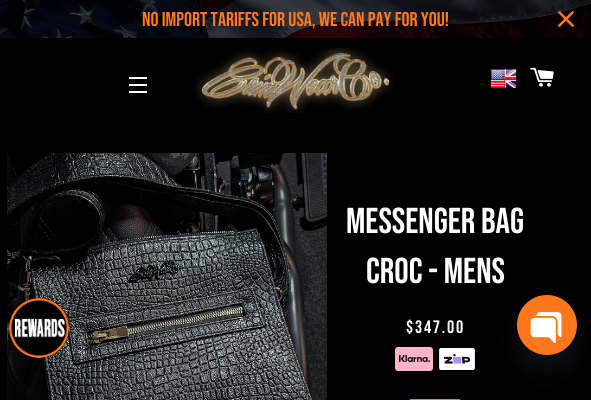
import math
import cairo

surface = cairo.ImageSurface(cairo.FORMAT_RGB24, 591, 400)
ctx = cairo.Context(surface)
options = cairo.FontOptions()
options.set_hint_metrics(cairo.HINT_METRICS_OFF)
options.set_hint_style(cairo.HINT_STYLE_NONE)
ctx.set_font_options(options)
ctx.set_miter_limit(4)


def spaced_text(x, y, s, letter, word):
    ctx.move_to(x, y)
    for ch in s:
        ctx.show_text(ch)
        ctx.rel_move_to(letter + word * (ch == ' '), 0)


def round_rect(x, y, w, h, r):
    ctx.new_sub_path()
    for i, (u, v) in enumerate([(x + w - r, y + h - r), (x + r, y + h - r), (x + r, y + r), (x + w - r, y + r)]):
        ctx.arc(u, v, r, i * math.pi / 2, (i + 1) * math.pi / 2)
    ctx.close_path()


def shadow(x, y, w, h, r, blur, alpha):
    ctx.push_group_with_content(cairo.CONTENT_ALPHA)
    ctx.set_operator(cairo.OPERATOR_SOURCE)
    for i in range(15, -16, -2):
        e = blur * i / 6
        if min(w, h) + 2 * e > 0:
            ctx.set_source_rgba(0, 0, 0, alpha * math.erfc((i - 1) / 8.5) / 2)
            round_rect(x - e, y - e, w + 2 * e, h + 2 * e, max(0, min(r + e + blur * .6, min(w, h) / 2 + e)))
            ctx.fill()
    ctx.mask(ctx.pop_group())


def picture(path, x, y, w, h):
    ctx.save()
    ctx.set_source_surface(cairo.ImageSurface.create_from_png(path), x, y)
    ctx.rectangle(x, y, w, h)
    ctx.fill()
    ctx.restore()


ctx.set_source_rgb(0, 0, 0)
ctx.paint()
picture("img1.png", 0, 0, 591, 38)
ctx.select_font_face("Bebas Neue")
ctx.set_font_size(20)
ctx.set_source_rgb(1, 0.467, 0.106)
ctx.move_to(142, 26)
ctx.show_text("NO IMPORT TARIFFS FOR USA, WE CAN PAY FOR YOU!")
picture("img2.png", 558, 11, 16, 16)
ctx.set_source_rgb(1, 1, 1)
ctx.rectangle(129, 77, 18, 2)
ctx.fill()
ctx.rectangle(129, 84, 18, 2)
ctx.fill()
ctx.rectangle(129, 91, 18, 2)
ctx.fill()
picture("img3.png", 194, 48, 200, 65)
picture("img4.png", 490, 69, 27, 19)
picture("img5.png", 530, 67, 24, 20)
picture("img6.png", 7, 153, 320, 247)
ctx.set_font_size(36)
ctx.move_to(346, 233)
ctx.show_text("Messenger Bag")
ctx.move_to(366, 283)
ctx.show_text("Croc - Mens")
ctx.set_font_size(18)
spaced_text(406, 333, "$347.00", 1.75, 0)
picture("img7.png", 395, 347, 38, 24)
picture("img8.png", 439, 348, 36, 22)
ctx.set_source_rgb(0.729, 0.569, 0.267)
ctx.rectangle(410, 399, 50, 1)
ctx.fill()
ctx.set_source_rgb(0, 0, 0)
ctx.arc(39, 328, 30, 0, 2 * math.pi)
ctx.fill()
picture("img9.png", 9, 298, 60, 60)
ctx.set_source_rgb(0.286, 0.408, 0.494)
shadow(517, 311, 60, 60, 30, 12, 0.16)
picture("img10.png", 517, 295, 60, 60)
surface.write_to_png("page.png")
